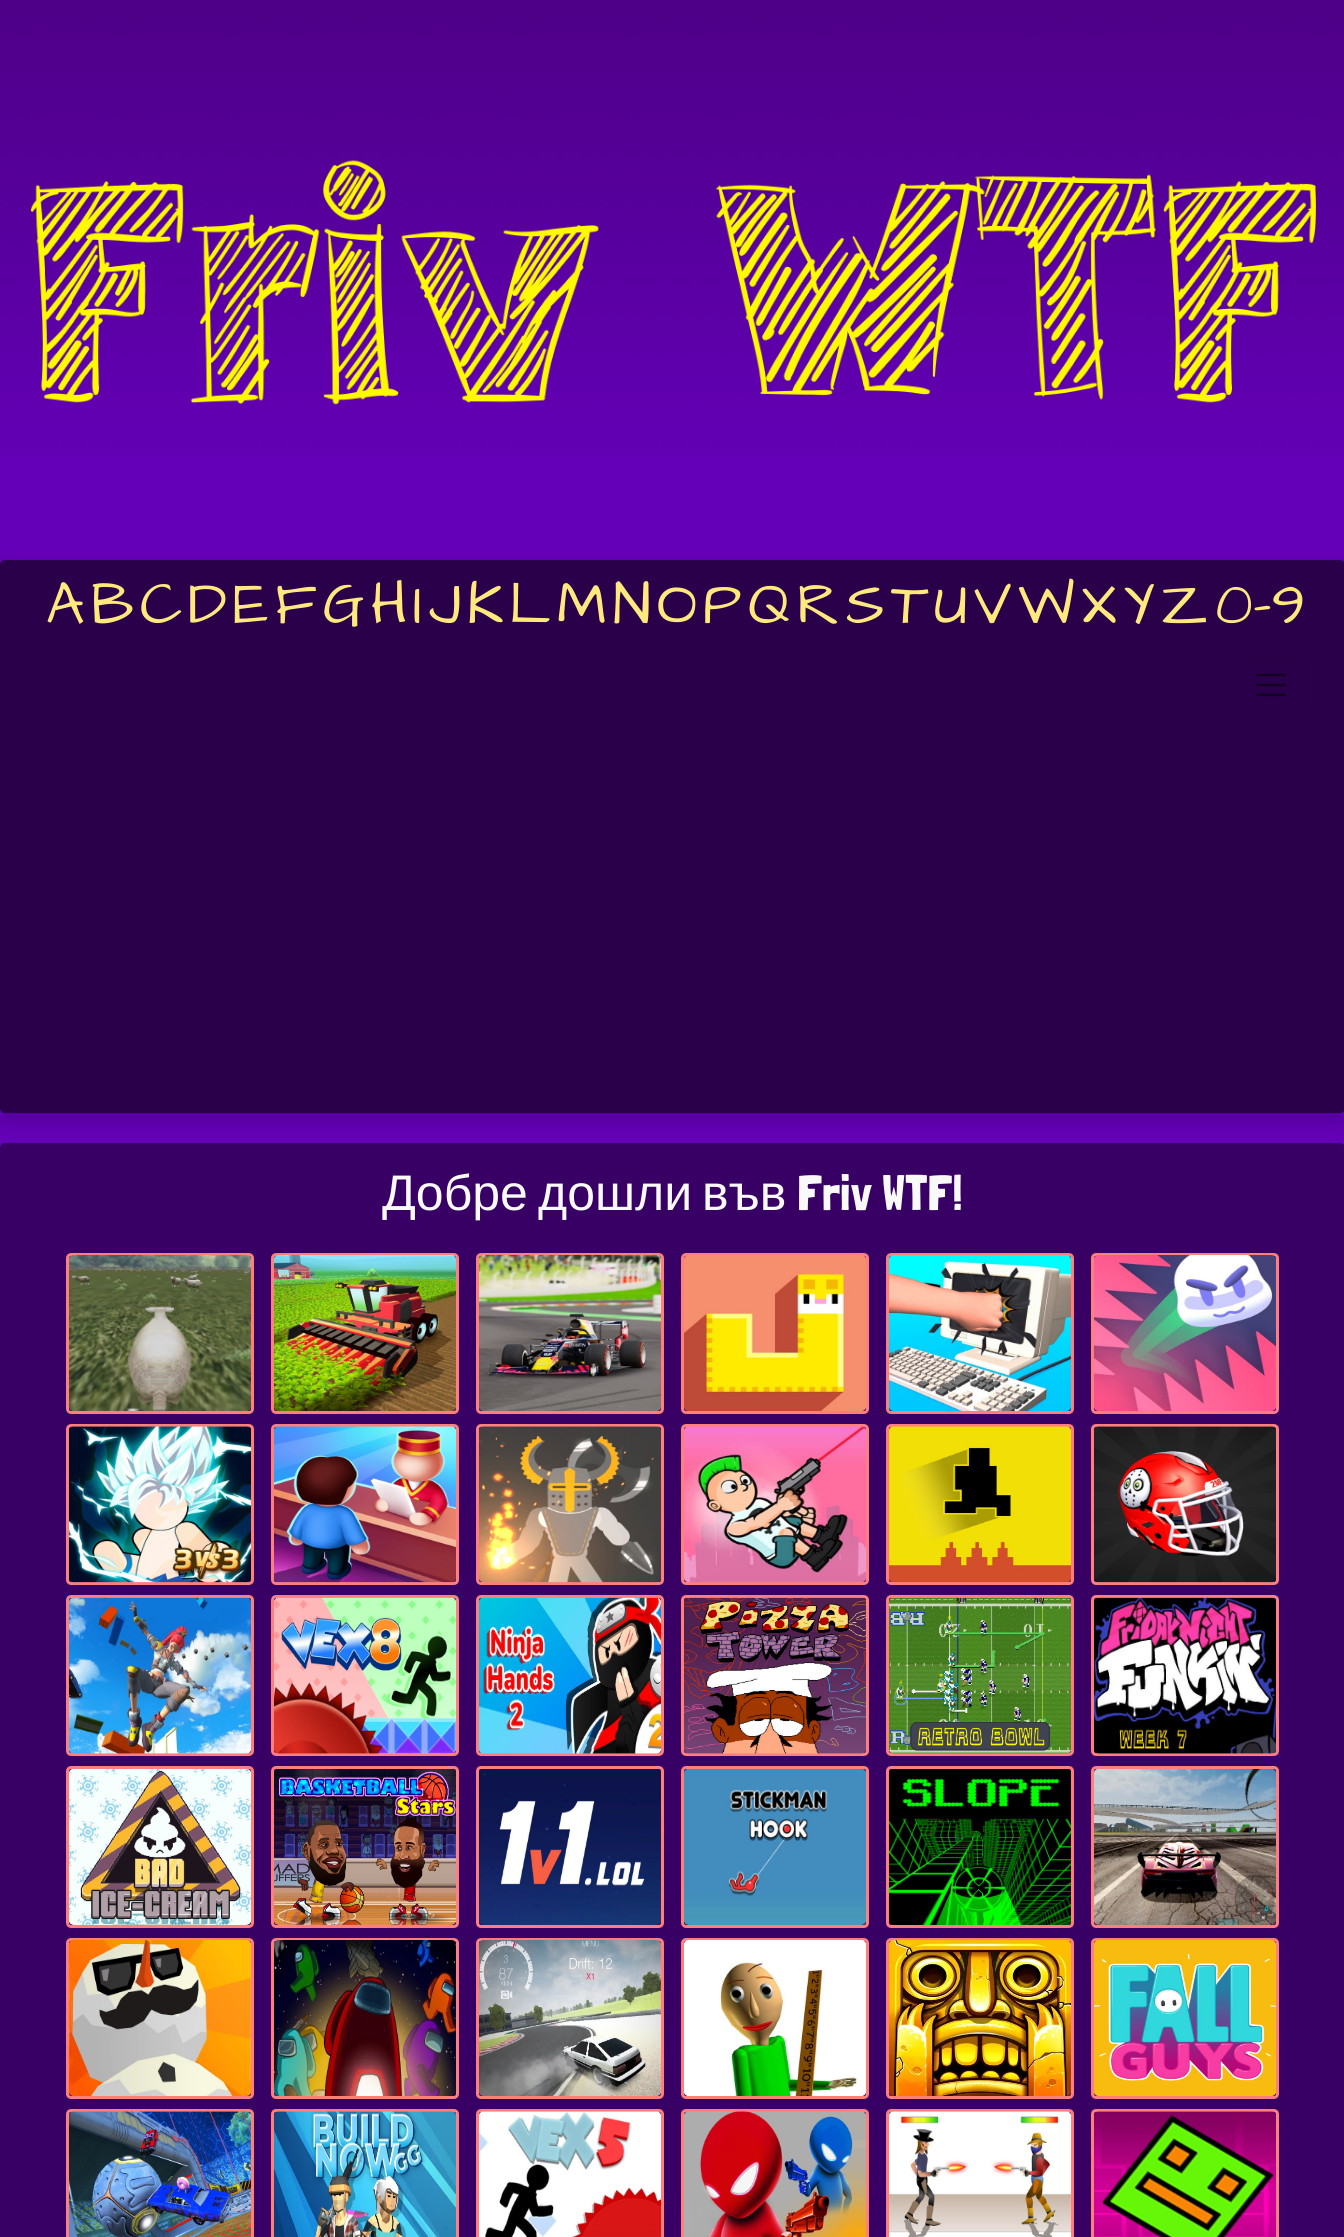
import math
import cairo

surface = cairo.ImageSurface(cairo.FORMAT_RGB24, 1344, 2237)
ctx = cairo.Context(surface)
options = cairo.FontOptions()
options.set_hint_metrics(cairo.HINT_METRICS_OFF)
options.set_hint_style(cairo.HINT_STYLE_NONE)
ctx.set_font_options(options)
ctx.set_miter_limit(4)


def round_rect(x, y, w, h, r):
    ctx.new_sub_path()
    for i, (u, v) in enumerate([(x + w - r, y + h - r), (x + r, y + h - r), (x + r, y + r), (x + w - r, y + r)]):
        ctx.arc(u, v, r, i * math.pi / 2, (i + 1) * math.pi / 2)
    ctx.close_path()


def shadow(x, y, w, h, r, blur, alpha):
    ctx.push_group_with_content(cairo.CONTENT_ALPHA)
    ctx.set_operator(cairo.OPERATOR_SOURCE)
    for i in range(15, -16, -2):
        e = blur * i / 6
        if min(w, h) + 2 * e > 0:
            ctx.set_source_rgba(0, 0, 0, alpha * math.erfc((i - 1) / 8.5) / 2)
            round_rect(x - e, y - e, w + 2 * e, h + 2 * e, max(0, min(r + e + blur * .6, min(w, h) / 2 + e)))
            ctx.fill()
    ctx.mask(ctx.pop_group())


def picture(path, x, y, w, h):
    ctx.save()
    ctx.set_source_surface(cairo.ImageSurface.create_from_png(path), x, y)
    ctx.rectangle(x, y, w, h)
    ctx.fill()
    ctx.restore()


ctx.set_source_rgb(0.392, 0, 0.722)
ctx.paint()
picture("img1.png", 0, 0, 1344, 456)
picture("img2.png", 30, 160, 1286, 245)
ctx.set_source_rgb(0.22, 0, 0.396)
round_rect(0, 1143, 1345, 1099, 5)
ctx.fill()
ctx.set_source_rgb(0, 0, 0)
shadow(0, 570, 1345, 553, 5, 10, 0.15)
ctx.set_source_rgb(0.161, 0, 0.286)
round_rect(0, 560, 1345, 553, 5)
ctx.fill()
ctx.select_font_face("Architects Daughter")
ctx.set_font_size(60)
ctx.set_source_rgb(1, 0.914, 0.498)
ctx.move_to(46, 623)
ctx.show_text("A")
ctx.move_to(91, 623)
ctx.show_text("B")
ctx.move_to(140, 623)
ctx.show_text("C")
ctx.move_to(188, 623)
ctx.show_text("D")
ctx.move_to(233, 623)
ctx.show_text("E")
ctx.move_to(275, 623)
ctx.show_text("F")
ctx.move_to(323, 623)
ctx.show_text("G")
ctx.move_to(371, 623)
ctx.show_text("H")
ctx.move_to(413, 623)
ctx.show_text("I")
ctx.move_to(429, 623)
ctx.show_text("J")
ctx.move_to(467, 623)
ctx.show_text("K")
ctx.move_to(509, 623)
ctx.show_text("L")
ctx.move_to(557, 623)
ctx.show_text("M")
ctx.move_to(613, 623)
ctx.show_text("N")
ctx.move_to(657, 623)
ctx.show_text("O")
ctx.move_to(703, 623)
ctx.show_text("P")
ctx.move_to(748, 623)
ctx.show_text("Q")
ctx.move_to(797, 623)
ctx.show_text("R")
ctx.move_to(846, 623)
ctx.show_text("S")
ctx.move_to(891, 623)
ctx.show_text("T")
ctx.move_to(934, 623)
ctx.show_text("U")
ctx.move_to(974, 623)
ctx.show_text("V")
ctx.move_to(1018, 623)
ctx.show_text("W")
ctx.move_to(1081, 623)
ctx.show_text("X")
ctx.move_to(1123, 623)
ctx.show_text("Y")
ctx.move_to(1161, 623)
ctx.show_text("Z")
ctx.move_to(1215, 623)
ctx.show_text("0-9")
round_rect(1236.5, 660.5, 69, 49, 4.5)
ctx.set_source_rgb(0.145, 0, 0.259)
ctx.set_line_width(1)
ctx.stroke()
ctx.new_path()
ctx.move_to(1257.5, 675)
ctx.line_to(1285, 675)
ctx.move_to(1257.5, 685)
ctx.line_to(1285, 685)
ctx.move_to(1257.5, 695)
ctx.line_to(1285, 695)
ctx.set_source_rgb(0.082, 0, 0.145)
ctx.set_line_width(2.5)
ctx.set_line_cap(cairo.LINE_CAP_ROUND)
ctx.stroke()
ctx.select_font_face("Liberation Sans")
ctx.set_font_size(50)
ctx.set_source_rgb(0.976, 0.976, 0.976)
ctx.move_to(382, 1210)
ctx.show_text("Добре")
ctx.move_to(538, 1210)
ctx.show_text("дошли")
ctx.move_to(702, 1210)
ctx.show_text("във")
ctx.select_font_face("Londrina Solid")
ctx.move_to(797, 1210)
ctx.show_text("Friv WTF!")
round_rect(67.5, 1254.5, 185, 158, 3.5)
ctx.set_source_rgb(1, 0.498, 0.498)
ctx.set_line_width(3)
ctx.set_line_cap(cairo.LINE_CAP_BUTT)
ctx.stroke()
picture("img3.png", 69, 1255, 182, 156)
round_rect(272.5, 1254.5, 185, 158, 3.5)
ctx.stroke()
picture("img4.png", 274, 1255, 182, 156)
round_rect(477.5, 1254.5, 185, 158, 3.5)
ctx.stroke()
picture("img5.png", 479, 1255, 182, 156)
round_rect(682.5, 1254.5, 185, 158, 3.5)
ctx.stroke()
picture("img6.png", 684, 1255, 182, 156)
round_rect(887.5, 1254.5, 185, 158, 3.5)
ctx.stroke()
picture("img7.png", 889, 1255, 182, 156)
round_rect(1092.5, 1254.5, 185, 158, 3.5)
ctx.stroke()
picture("img8.png", 1094, 1255, 182, 156)
round_rect(67.5, 1425.5, 185, 158, 3.5)
ctx.stroke()
picture("img9.png", 69, 1426, 182, 157)
round_rect(272.5, 1425.5, 185, 158, 3.5)
ctx.stroke()
picture("img10.png", 274, 1426, 182, 157)
round_rect(477.5, 1425.5, 185, 158, 3.5)
ctx.stroke()
picture("img11.png", 479, 1426, 182, 157)
round_rect(682.5, 1425.5, 185, 158, 3.5)
ctx.stroke()
picture("img12.png", 684, 1426, 182, 157)
round_rect(887.5, 1425.5, 185, 158, 3.5)
ctx.stroke()
picture("img13.png", 889, 1426, 182, 157)
round_rect(1092.5, 1425.5, 185, 158, 3.5)
ctx.stroke()
picture("img14.png", 1094, 1426, 182, 157)
round_rect(67.5, 1596.5, 185, 158, 3.5)
ctx.stroke()
picture("img15.png", 69, 1597, 182, 157)
round_rect(272.5, 1596.5, 185, 158, 3.5)
ctx.stroke()
picture("img16.png", 274, 1597, 182, 157)
round_rect(477.5, 1596.5, 185, 158, 3.5)
ctx.stroke()
picture("img17.png", 479, 1597, 182, 157)
round_rect(682.5, 1596.5, 185, 158, 3.5)
ctx.stroke()
picture("img18.png", 684, 1597, 182, 157)
round_rect(887.5, 1596.5, 185, 158, 3.5)
ctx.stroke()
picture("img19.png", 889, 1597, 182, 157)
round_rect(1092.5, 1596.5, 185, 158, 3.5)
ctx.stroke()
picture("img20.png", 1094, 1597, 182, 157)
round_rect(67.5, 1767.5, 185, 159, 3.5)
ctx.stroke()
picture("img21.png", 69, 1769, 182, 156)
round_rect(272.5, 1767.5, 185, 159, 3.5)
ctx.stroke()
picture("img22.png", 274, 1769, 182, 156)
round_rect(477.5, 1767.5, 185, 159, 3.5)
ctx.stroke()
picture("img23.png", 479, 1769, 182, 156)
round_rect(682.5, 1767.5, 185, 159, 3.5)
ctx.stroke()
picture("img24.png", 684, 1769, 182, 156)
round_rect(887.5, 1767.5, 185, 159, 3.5)
ctx.stroke()
picture("img25.png", 889, 1769, 182, 156)
round_rect(1092.5, 1767.5, 185, 159, 3.5)
ctx.stroke()
picture("img26.png", 1094, 1769, 182, 156)
round_rect(67.5, 1939.5, 185, 158, 3.5)
ctx.stroke()
picture("img27.png", 69, 1940, 182, 156)
round_rect(272.5, 1939.5, 185, 158, 3.5)
ctx.stroke()
picture("img28.png", 274, 1940, 182, 156)
round_rect(477.5, 1939.5, 185, 158, 3.5)
ctx.stroke()
picture("img29.png", 479, 1940, 182, 156)
round_rect(682.5, 1939.5, 185, 158, 3.5)
ctx.stroke()
picture("img30.png", 684, 1940, 182, 156)
round_rect(887.5, 1939.5, 185, 158, 3.5)
ctx.stroke()
picture("img31.png", 889, 1940, 182, 156)
round_rect(1092.5, 1939.5, 185, 158, 3.5)
ctx.stroke()
picture("img32.png", 1094, 1940, 182, 156)
round_rect(67.5, 2110.5, 185, 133, 3.5)
ctx.stroke()
picture("img33.png", 69, 2111, 182, 126)
round_rect(272.5, 2110.5, 185, 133, 3.5)
ctx.stroke()
picture("img34.png", 274, 2111, 182, 126)
round_rect(477.5, 2110.5, 185, 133, 3.5)
ctx.stroke()
picture("img35.png", 479, 2111, 182, 126)
round_rect(682.5, 2110.5, 185, 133, 3.5)
ctx.stroke()
picture("img36.png", 684, 2111, 182, 126)
round_rect(887.5, 2110.5, 185, 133, 3.5)
ctx.stroke()
picture("img37.png", 889, 2111, 182, 126)
round_rect(1092.5, 2110.5, 185, 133, 3.5)
ctx.stroke()
picture("img38.png", 1094, 2111, 182, 126)
surface.write_to_png("page.png")
